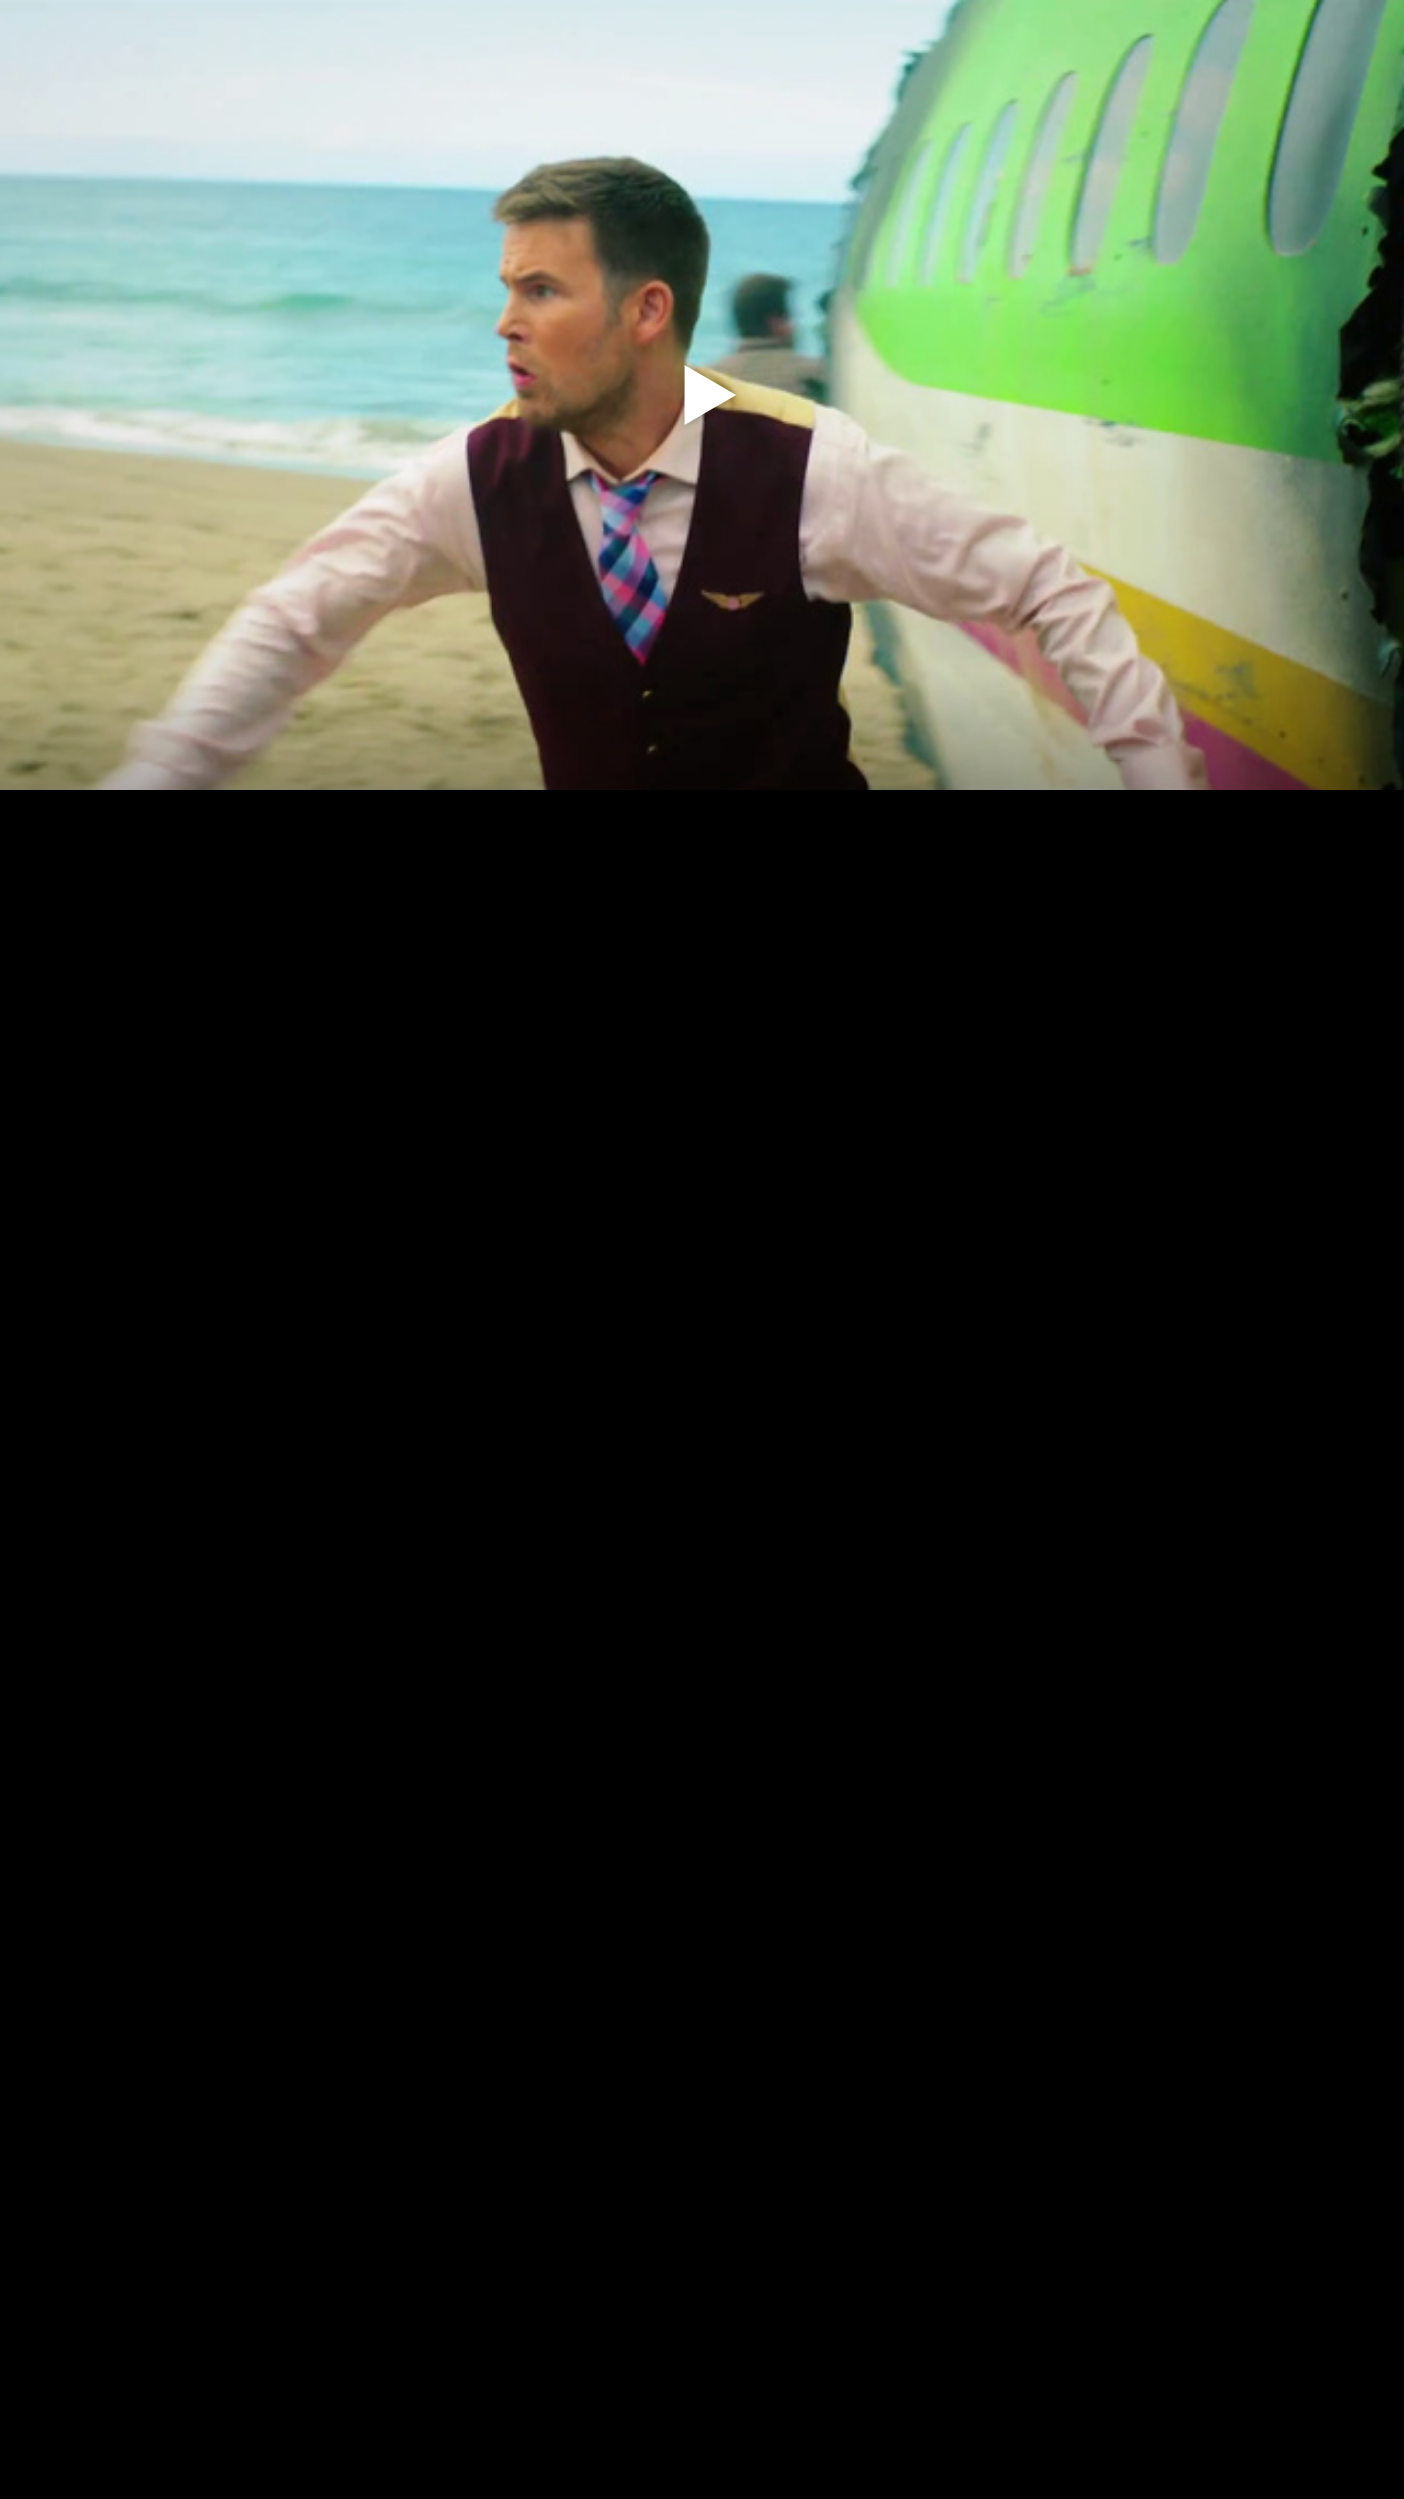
import math
import cairo

surface = cairo.ImageSurface(cairo.FORMAT_RGB24, 1404, 2499)
ctx = cairo.Context(surface)
options = cairo.FontOptions()
options.set_hint_metrics(cairo.HINT_METRICS_OFF)
options.set_hint_style(cairo.HINT_STYLE_NONE)
ctx.set_font_options(options)
ctx.set_miter_limit(4)


def picture(path, x, y, w, h):
    ctx.save()
    ctx.set_source_surface(cairo.ImageSurface.create_from_png(path), x, y)
    ctx.rectangle(x, y, w, h)
    ctx.fill()
    ctx.restore()


ctx.set_source_rgb(0, 0, 0)
ctx.paint()
picture("img1.png", 0, 0, 1404, 790)
picture("img2.png", 677, 360, 63, 70)
surface.write_to_png("page.png")
